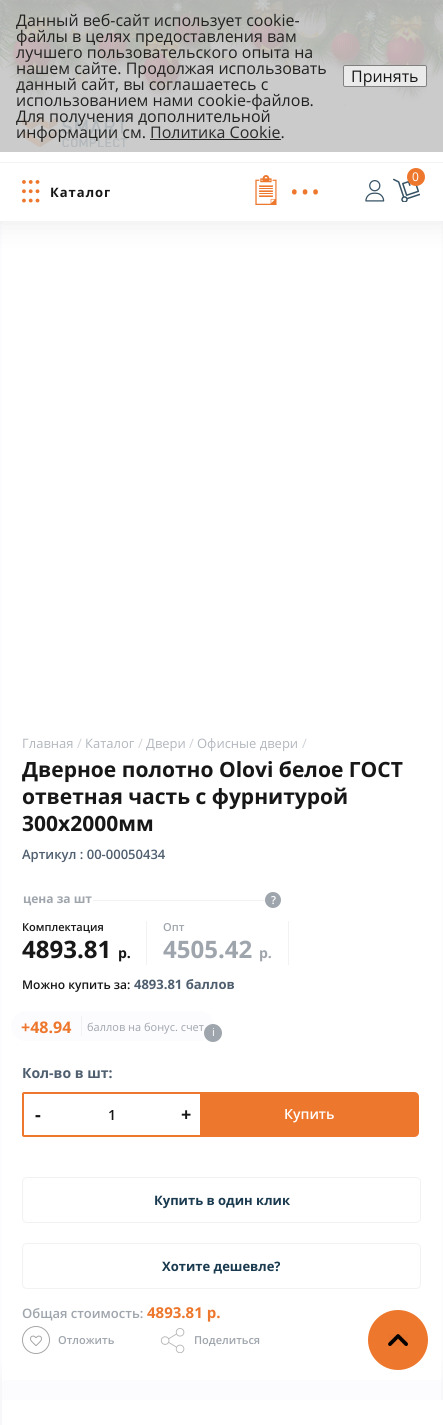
import math
import cairo

surface = cairo.ImageSurface(cairo.FORMAT_RGB24, 443, 1425)
ctx = cairo.Context(surface)
options = cairo.FontOptions()
options.set_hint_metrics(cairo.HINT_METRICS_OFF)
options.set_hint_style(cairo.HINT_STYLE_NONE)
ctx.set_font_options(options)
ctx.set_miter_limit(4)


def spaced_text(x, y, s, letter, word):
    ctx.move_to(x, y)
    for ch in s:
        ctx.show_text(ch)
        ctx.rel_move_to(letter + word * (ch == ' '), 0)


def round_rect(x, y, w, h, r):
    ctx.new_sub_path()
    for i, (u, v) in enumerate([(x + w - r, y + h - r), (x + r, y + h - r), (x + r, y + r), (x + w - r, y + r)]):
        ctx.arc(u, v, r, i * math.pi / 2, (i + 1) * math.pi / 2)
    ctx.close_path()


def shadow(x, y, w, h, r, blur, alpha):
    ctx.push_group_with_content(cairo.CONTENT_ALPHA)
    ctx.set_operator(cairo.OPERATOR_SOURCE)
    for i in range(15, -16, -2):
        e = blur * i / 6
        if min(w, h) + 2 * e > 0:
            ctx.set_source_rgba(0, 0, 0, alpha * math.erfc((i - 1) / 8.5) / 2)
            round_rect(x - e, y - e, w + 2 * e, h + 2 * e, max(0, min(r + e + blur * .6, min(w, h) / 2 + e)))
            ctx.fill()
    ctx.mask(ctx.pop_group())


def picture(path, x, y, w, h):
    ctx.save()
    ctx.set_source_surface(cairo.ImageSurface.create_from_png(path), x, y)
    ctx.rectangle(x, y, w, h)
    ctx.fill()
    ctx.restore()


ctx.set_source_rgb(1, 1, 1)
ctx.paint()
picture("img4.png", 0, 0, 443, 106)
picture("img9.png", 136, 0, 51, 99)
picture("img10.png", 170, 0, 41, 54)
picture("img16.png", 204, 6, 45, 66)
picture("img11.png", 177, 0, 28, 31)
picture("img6.png", 6, 0, 52, 82)
picture("img5.png", 0, 0, 25, 71)
picture("img8.png", 54, 0, 49, 47)
picture("img7.png", 25, 0, 61, 27)
picture("img13.png", 243, 0, 49, 64)
picture("img12.png", 205, 0, 50, 50)
picture("img14.png", 287, 0, 46, 49)
picture("img15.png", 91, 9, 42, 64)
picture("img19.png", 325, 10, 41, 63)
picture("img17.png", 289, 0, 78, 28)
picture("img18.png", 367, 0, 6, 69)
picture("img6.png", 379, 0, 52, 82)
picture("img5.png", 373, 0, 25, 71)
picture("img21.png", 427, 1, 16, 44)
picture("img20.png", 398, 0, 45, 27)
ctx.set_source_rgb(0, 0, 0)
shadow(0, -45, 443, 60, 0, 15, 0.75)
picture("img1.png", 172, 1, 11, 11)
picture("img2.png", 255, 0, 15, 11)
picture("img3.png", 365, 11, 11, 10)
ctx.set_source_rgb(0.988, 0.988, 1)
ctx.rectangle(0, 221, 443, 1204)
ctx.fill()
ctx.set_source_rgb(1, 1, 1)
ctx.rectangle(2, 221, 439, 488)
ctx.fill()
ctx.set_source_rgb(0.569, 0.569, 0.569)
shadow(-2, 161, 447, 62, 0, 14, 0.19)
ctx.set_source_rgb(1, 1, 1)
ctx.rectangle(0, 145, 443, 17)
ctx.fill()
picture("img22.png", 22, 117, 105, 30)
ctx.set_source_rgba(0.773, 0.773, 0.773, 0.9)
ctx.rectangle(0, 0, 443, 152)
ctx.fill()
ctx.select_font_face("Open Sans")
ctx.set_font_size(16)
ctx.set_source_rgb(0.133, 0.133, 0.129)
ctx.move_to(16, 26)
ctx.show_text("Данный веб-сайт использует cookie-")
ctx.move_to(16, 42)
ctx.show_text("файлы в целях предоставления вам")
ctx.move_to(16, 58)
ctx.show_text("лучшего пользовательского опыта на")
ctx.move_to(16, 74)
ctx.show_text("нашем сайте. Продолжая использовать")
ctx.move_to(16, 90)
ctx.show_text("данный сайт, вы соглашаетесь с")
ctx.move_to(16, 106)
ctx.show_text("использованием нами cookie-файлов.")
ctx.move_to(16, 122)
ctx.show_text("Для получения дополнительной")
ctx.move_to(16, 138)
ctx.show_text("информации см.")
ctx.set_source_rgb(0.161, 0.161, 0.161)
ctx.move_to(150, 138)
ctx.show_text("Политика Cookie.")
ctx.rectangle(150, 139, 131, 1)
ctx.fill()
ctx.set_source_rgba(0.937, 0.937, 0.937, 0.9)
round_rect(343, 65, 84, 22, 2)
ctx.fill()
round_rect(343.5, 65.5, 83, 21, 1.5)
ctx.set_source_rgba(0.463, 0.463, 0.463, 0.9)
ctx.set_line_width(1)
ctx.stroke()
ctx.set_source_rgb(0.094, 0.09, 0.09)
ctx.move_to(351, 82)
ctx.show_text("Принять")
ctx.set_source_rgb(0.953, 0.953, 0.953)
ctx.rectangle(0, 162, 443, 1)
ctx.fill()
ctx.set_source_rgb(1, 1, 1)
ctx.rectangle(0, 163, 443, 58)
ctx.fill()
picture("img23.png", 22, 180, 18, 23)
ctx.select_font_face("Open Sans", cairo.FONT_SLANT_NORMAL, cairo.FONT_WEIGHT_BOLD)
ctx.set_font_size(13)
ctx.set_source_rgb(0.094, 0.09, 0.09)
spaced_text(50, 197, "Каталог", 1, 0)
picture("img24.png", 255, 175, 22, 30)
ctx.select_font_face("Open Sans")
ctx.set_font_size(40)
ctx.set_source_rgb(0.929, 0.467, 0.176)
ctx.move_to(289, 194)
ctx.show_text("...")
picture("img25.png", 365, 180, 20, 22)
picture("img26.png", 393, 178, 27, 24)
ctx.arc(416, 177, 9, 0, 2 * math.pi)
ctx.fill()
ctx.set_font_size(12)
ctx.set_source_rgb(1, 1, 1)
ctx.move_to(412, 181)
ctx.show_text("0")
ctx.set_source_rgb(0.451, 0.451, 0.451)
shadow(0, 1381, 443, 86, 0, 14, 0.08)
ctx.set_source_rgb(1, 1, 1)
ctx.rectangle(2, 709, 439, 671)
ctx.fill()
ctx.set_font_size(13)
ctx.set_source_rgb(0.698, 0.718, 0.741)
ctx.move_to(22, 748)
ctx.show_text("Главная")
ctx.set_source_rgb(0.812, 0.824, 0.839)
ctx.move_to(77, 748)
ctx.show_text("/")
ctx.set_source_rgb(0.698, 0.718, 0.741)
ctx.move_to(85, 748)
ctx.show_text("Каталог")
ctx.set_source_rgb(0.812, 0.824, 0.839)
ctx.move_to(138, 748)
ctx.show_text("/")
ctx.set_source_rgb(0.698, 0.718, 0.741)
ctx.move_to(146, 748)
ctx.show_text("Двери")
ctx.set_source_rgb(0.812, 0.824, 0.839)
ctx.move_to(189, 748)
ctx.show_text("/")
ctx.set_source_rgb(0.698, 0.718, 0.741)
ctx.move_to(197, 748)
ctx.show_text("Офисные двери")
ctx.set_source_rgb(0.812, 0.824, 0.839)
ctx.move_to(302, 748)
ctx.show_text("/")
ctx.select_font_face("Open Sans", cairo.FONT_SLANT_NORMAL, cairo.FONT_WEIGHT_BOLD)
ctx.set_font_size(21)
ctx.set_source_rgb(0.094, 0.09, 0.09)
ctx.move_to(22, 777)
ctx.show_text("Дверное полотно Olovi белое ГОСТ")
ctx.move_to(22, 804)
ctx.show_text("ответная часть с фурнитурой")
ctx.move_to(22, 831)
ctx.show_text("300х2000мм")
ctx.select_font_face("Open Sans SemiBold")
ctx.set_font_size(13)
ctx.set_source_rgb(0.31, 0.373, 0.435)
ctx.move_to(22, 859)
ctx.show_text("Артикул : 00-00050434")
ctx.set_source_rgb(0.949, 0.949, 0.949)
ctx.rectangle(93, 900, 188, 1)
ctx.fill()
ctx.select_font_face("Open Sans", cairo.FONT_SLANT_NORMAL, cairo.FONT_WEIGHT_BOLD)
ctx.set_font_size(12)
ctx.set_source_rgb(0.624, 0.647, 0.675)
ctx.move_to(23, 903)
ctx.show_text("цена за шт")
ctx.new_path()
ctx.arc(273, 900, 8, 0, 2 * math.pi)
ctx.fill()
ctx.select_font_face("Open Sans SemiBold")
ctx.set_font_size(11)
ctx.set_source_rgb(1, 1, 1)
ctx.move_to(271, 904)
ctx.show_text("?")
ctx.set_source_rgb(0.949, 0.949, 0.949)
ctx.rectangle(146, 921, 1, 44)
ctx.fill()
ctx.set_source_rgb(0.094, 0.09, 0.09)
ctx.move_to(22, 931)
ctx.show_text("Комплектация")
ctx.select_font_face("Open Sans", cairo.FONT_SLANT_NORMAL, cairo.FONT_WEIGHT_BOLD)
ctx.set_font_size(24)
ctx.move_to(22, 958)
ctx.show_text("4893.81")
ctx.set_font_size(14)
ctx.move_to(118, 958)
ctx.show_text("р.")
ctx.set_source_rgb(0.949, 0.949, 0.949)
ctx.rectangle(288, 921, 1, 44)
ctx.fill()
ctx.select_font_face("Open Sans SemiBold")
ctx.set_font_size(11)
ctx.set_source_rgb(0.624, 0.647, 0.675)
ctx.move_to(163, 931)
ctx.show_text("Опт")
ctx.select_font_face("Open Sans", cairo.FONT_SLANT_NORMAL, cairo.FONT_WEIGHT_BOLD)
ctx.set_font_size(24)
ctx.move_to(163, 958)
ctx.show_text("4505.42")
ctx.set_font_size(14)
ctx.move_to(259, 958)
ctx.show_text("р.")
ctx.select_font_face("Open Sans SemiBold")
ctx.set_font_size(12)
ctx.set_source_rgb(0.094, 0.09, 0.09)
ctx.move_to(22, 989)
ctx.show_text("Можно купить за:")
ctx.select_font_face("Open Sans", cairo.FONT_SLANT_NORMAL, cairo.FONT_WEIGHT_BOLD)
ctx.set_font_size(13)
ctx.set_source_rgb(0.31, 0.373, 0.435)
ctx.move_to(134, 989)
ctx.show_text("4893.81 баллов")
ctx.set_source_rgb(0.988, 0.988, 1)
round_rect(11, 1011, 203, 30, 15)
ctx.fill()
ctx.set_source_rgb(0.949, 0.949, 0.949)
ctx.rectangle(81, 1016, 1, 20)
ctx.fill()
ctx.set_font_size(16)
ctx.set_source_rgb(0.929, 0.467, 0.176)
ctx.move_to(21, 1033)
ctx.show_text("+48.94")
ctx.select_font_face("Open Sans")
ctx.set_font_size(11)
ctx.set_source_rgb(0.624, 0.647, 0.675)
ctx.move_to(87, 1031)
ctx.show_text("баллов на бонус. счет")
ctx.new_path()
ctx.arc(213, 1033, 9, 0, 2 * math.pi)
ctx.fill()
ctx.set_source_rgb(1, 1, 1)
ctx.move_to(212, 1036)
ctx.show_text("i")
ctx.select_font_face("Open Sans", cairo.FONT_SLANT_NORMAL, cairo.FONT_WEIGHT_BOLD)
ctx.set_font_size(14)
ctx.set_source_rgb(0.31, 0.373, 0.435)
ctx.move_to(22, 1078)
ctx.show_text("Кол-во в шт:")
round_rect(23, 1093, 178, 43, 1)
ctx.set_source_rgb(0.929, 0.467, 0.176)
ctx.set_line_width(2)
ctx.stroke()
ctx.set_font_size(18)
ctx.set_source_rgb(0.094, 0.09, 0.09)
ctx.move_to(35, 1121)
ctx.show_text("-")
ctx.select_font_face("Open Sans SemiBold")
ctx.set_font_size(14)
ctx.move_to(108, 1120)
ctx.show_text("1")
ctx.select_font_face("Open Sans", cairo.FONT_SLANT_NORMAL, cairo.FONT_WEIGHT_BOLD)
ctx.set_font_size(18)
ctx.move_to(181, 1121)
ctx.show_text("+")
ctx.set_source_rgb(0.929, 0.467, 0.176)
ctx.new_path()
ctx.move_to(200, 1092)
ctx.line_to(414, 1092)
ctx.curve_to(417, 1092, 419, 1094, 419, 1097)
ctx.line_to(419, 1132)
ctx.curve_to(419, 1135, 417, 1137, 414, 1137)
ctx.line_to(200, 1137)
ctx.close_path()
ctx.fill()
ctx.select_font_face("Open Sans SemiBold")
ctx.set_font_size(14)
ctx.set_source_rgb(1, 1, 1)
ctx.move_to(284, 1119)
ctx.show_text("Купить")
round_rect(22.5, 1177.5, 398, 45, 4.5)
ctx.set_source_rgb(0.949, 0.949, 0.949)
ctx.set_line_width(1)
ctx.stroke()
ctx.select_font_face("Open Sans", cairo.FONT_SLANT_NORMAL, cairo.FONT_WEIGHT_BOLD)
ctx.set_font_size(13)
ctx.set_source_rgb(0.102, 0.227, 0.314)
ctx.move_to(154, 1205)
ctx.show_text("Купить в один клик")
round_rect(22.5, 1243.5, 398, 45, 4.5)
ctx.set_source_rgb(0.949, 0.949, 0.949)
ctx.stroke()
ctx.set_source_rgb(0.102, 0.227, 0.314)
ctx.move_to(162, 1271)
ctx.show_text("Хотите дешевле?")
ctx.select_font_face("Open Sans SemiBold")
ctx.set_source_rgb(0.624, 0.647, 0.675)
ctx.move_to(22, 1318)
ctx.show_text("Общая стоимость:")
ctx.select_font_face("Open Sans", cairo.FONT_SLANT_NORMAL, cairo.FONT_WEIGHT_BOLD)
ctx.set_font_size(15)
ctx.set_source_rgb(0.929, 0.467, 0.176)
ctx.move_to(147, 1318)
ctx.show_text("4893.81 р.")
picture("img27.png", 22, 1326, 28, 28)
ctx.select_font_face("Open Sans SemiBold")
ctx.set_font_size(11)
ctx.set_source_rgb(0.624, 0.647, 0.675)
ctx.move_to(58, 1344)
ctx.show_text("Отложить")
picture("img28.png", 160, 1328, 25, 25)
ctx.move_to(194, 1344)
ctx.show_text("Поделиться")
ctx.set_source_rgb(0.988, 0.988, 1)
ctx.rectangle(2, 1380, 439, 20)
ctx.fill()
ctx.set_source_rgb(1, 1, 1)
ctx.rectangle(2, 1400, 441, 25)
ctx.fill()
ctx.set_source_rgb(0.929, 0.467, 0.176)
ctx.arc(398, 1340, 30, 0, 2 * math.pi)
ctx.fill()
picture("img29.png", 388, 1334, 20, 12)
surface.write_to_png("page.png")
